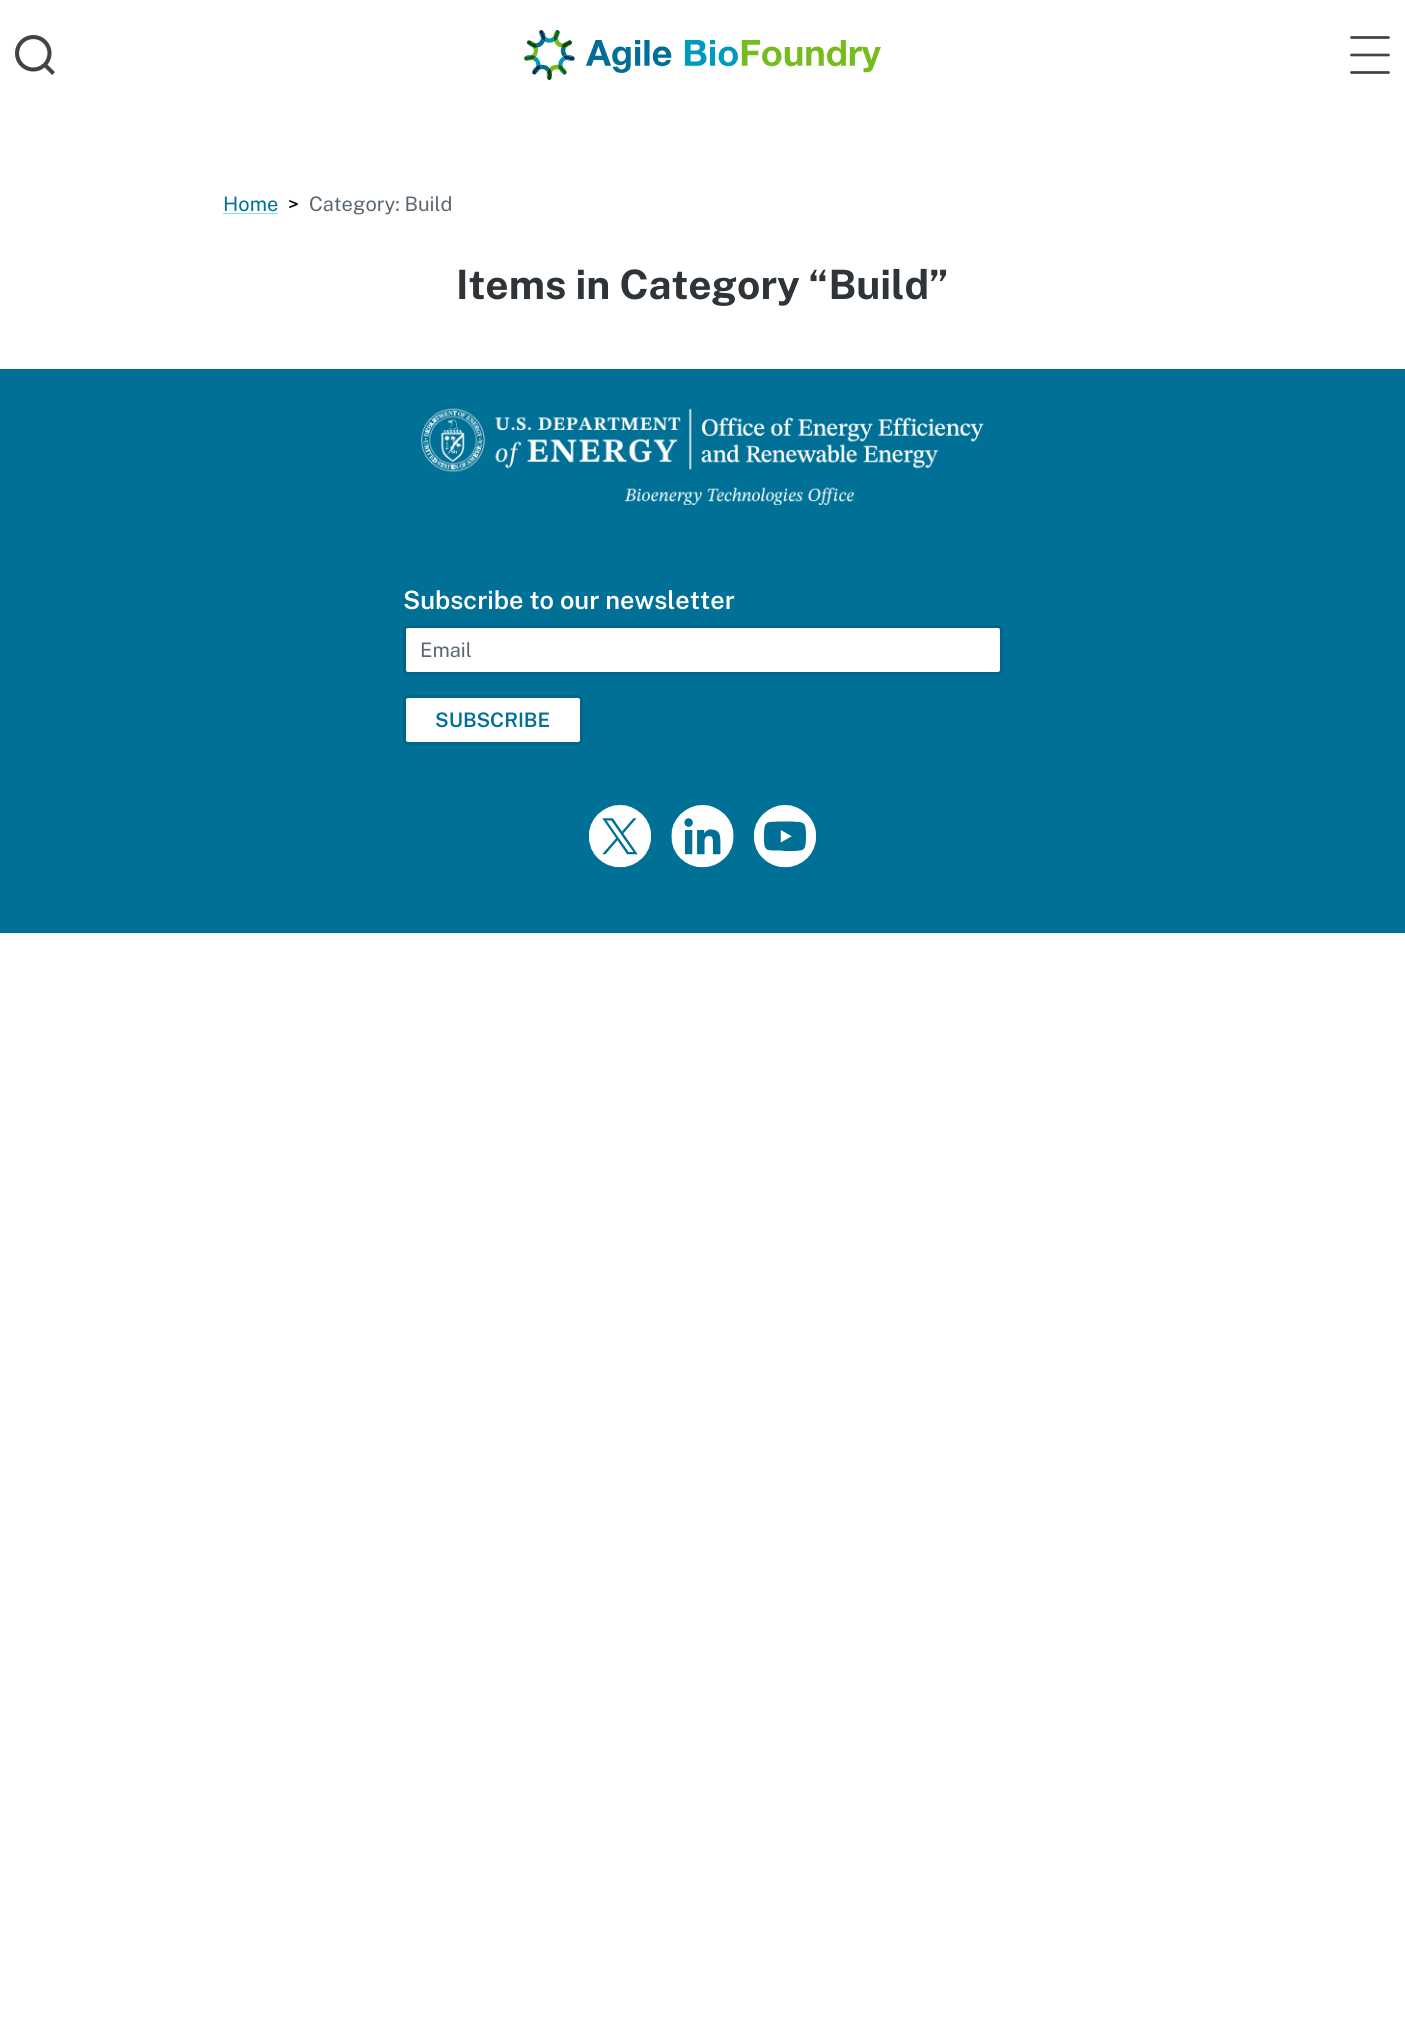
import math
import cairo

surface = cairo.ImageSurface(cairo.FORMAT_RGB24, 1405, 2040)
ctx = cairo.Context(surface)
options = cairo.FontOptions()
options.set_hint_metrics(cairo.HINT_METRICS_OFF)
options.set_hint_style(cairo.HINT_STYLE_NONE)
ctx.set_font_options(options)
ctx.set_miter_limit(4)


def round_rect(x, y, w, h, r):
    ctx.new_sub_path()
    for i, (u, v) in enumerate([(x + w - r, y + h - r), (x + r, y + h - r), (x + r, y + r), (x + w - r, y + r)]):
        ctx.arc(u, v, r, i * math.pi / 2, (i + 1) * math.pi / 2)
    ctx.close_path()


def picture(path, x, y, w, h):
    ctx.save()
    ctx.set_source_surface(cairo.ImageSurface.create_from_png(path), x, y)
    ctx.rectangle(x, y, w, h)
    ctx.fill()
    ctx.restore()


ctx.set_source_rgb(1, 1, 1)
ctx.paint()
picture("img1.png", 524, 30, 357, 50)
picture("img2.png", 15, 35, 40, 40)
ctx.new_path()
ctx.move_to(1351.5, 37.5)
ctx.line_to(1388.5, 37.5)
ctx.move_to(1351.5, 55)
ctx.line_to(1388.5, 55)
ctx.move_to(1351.5, 72.5)
ctx.line_to(1388.5, 72.5)
ctx.set_source_rgb(0.263, 0.263, 0.263)
ctx.set_line_width(2.7)
ctx.set_line_cap(cairo.LINE_CAP_ROUND)
ctx.stroke()
ctx.select_font_face("Public Sans")
ctx.set_font_size(20)
ctx.set_source_rgb(0, 0.439, 0.588)
ctx.move_to(223, 211)
ctx.show_text("Home")
ctx.set_source_rgb(0.506, 0.875, 1)
ctx.rectangle(223, 213, 55, 1)
ctx.fill()
ctx.set_source_rgb(0, 0, 0)
ctx.move_to(288, 211)
ctx.show_text(">")
ctx.set_source_rgb(0.357, 0.404, 0.439)
ctx.move_to(309, 211)
ctx.show_text("Category: Build")
ctx.select_font_face("Public Sans", cairo.FONT_SLANT_NORMAL, cairo.FONT_WEIGHT_BOLD)
ctx.set_font_size(40.5)
ctx.set_source_rgb(0.18, 0.204, 0.22)
ctx.move_to(456, 299)
ctx.show_text("Items in Category “Build”")
ctx.set_source_rgb(0, 0.439, 0.588)
ctx.rectangle(0, 369, 1405, 564)
ctx.fill()
picture("img3.png", 421, 408, 563, 97)
ctx.select_font_face("Public Sans SemiBold")
ctx.set_font_size(25.25)
ctx.set_source_rgb(1, 1, 1)
ctx.move_to(403, 609)
ctx.show_text("Subscribe to our newsletter")
round_rect(404.5, 626.5, 597, 47, 3.5)
ctx.fill_preserve()
ctx.set_source_rgb(0, 0.396, 0.529)
ctx.set_line_width(3)
ctx.set_line_cap(cairo.LINE_CAP_BUTT)
ctx.stroke()
ctx.select_font_face("Public Sans")
ctx.set_font_size(20)
ctx.set_source_rgb(0.357, 0.404, 0.439)
ctx.move_to(420, 657)
ctx.show_text("Email")
ctx.set_source_rgb(1, 1, 1)
round_rect(404.5, 696.5, 177, 47, 3.5)
ctx.fill_preserve()
ctx.set_source_rgb(0, 0.396, 0.529)
ctx.stroke()
ctx.select_font_face("Public Sans SemiBold")
ctx.set_source_rgb(0, 0.439, 0.588)
ctx.move_to(435, 727)
ctx.show_text("SUBSCRIBE")
picture("img4.png", 589, 805, 62, 63)
picture("img5.png", 671, 805, 63, 63)
picture("img6.png", 754, 805, 62, 63)
surface.write_to_png("page.png")
